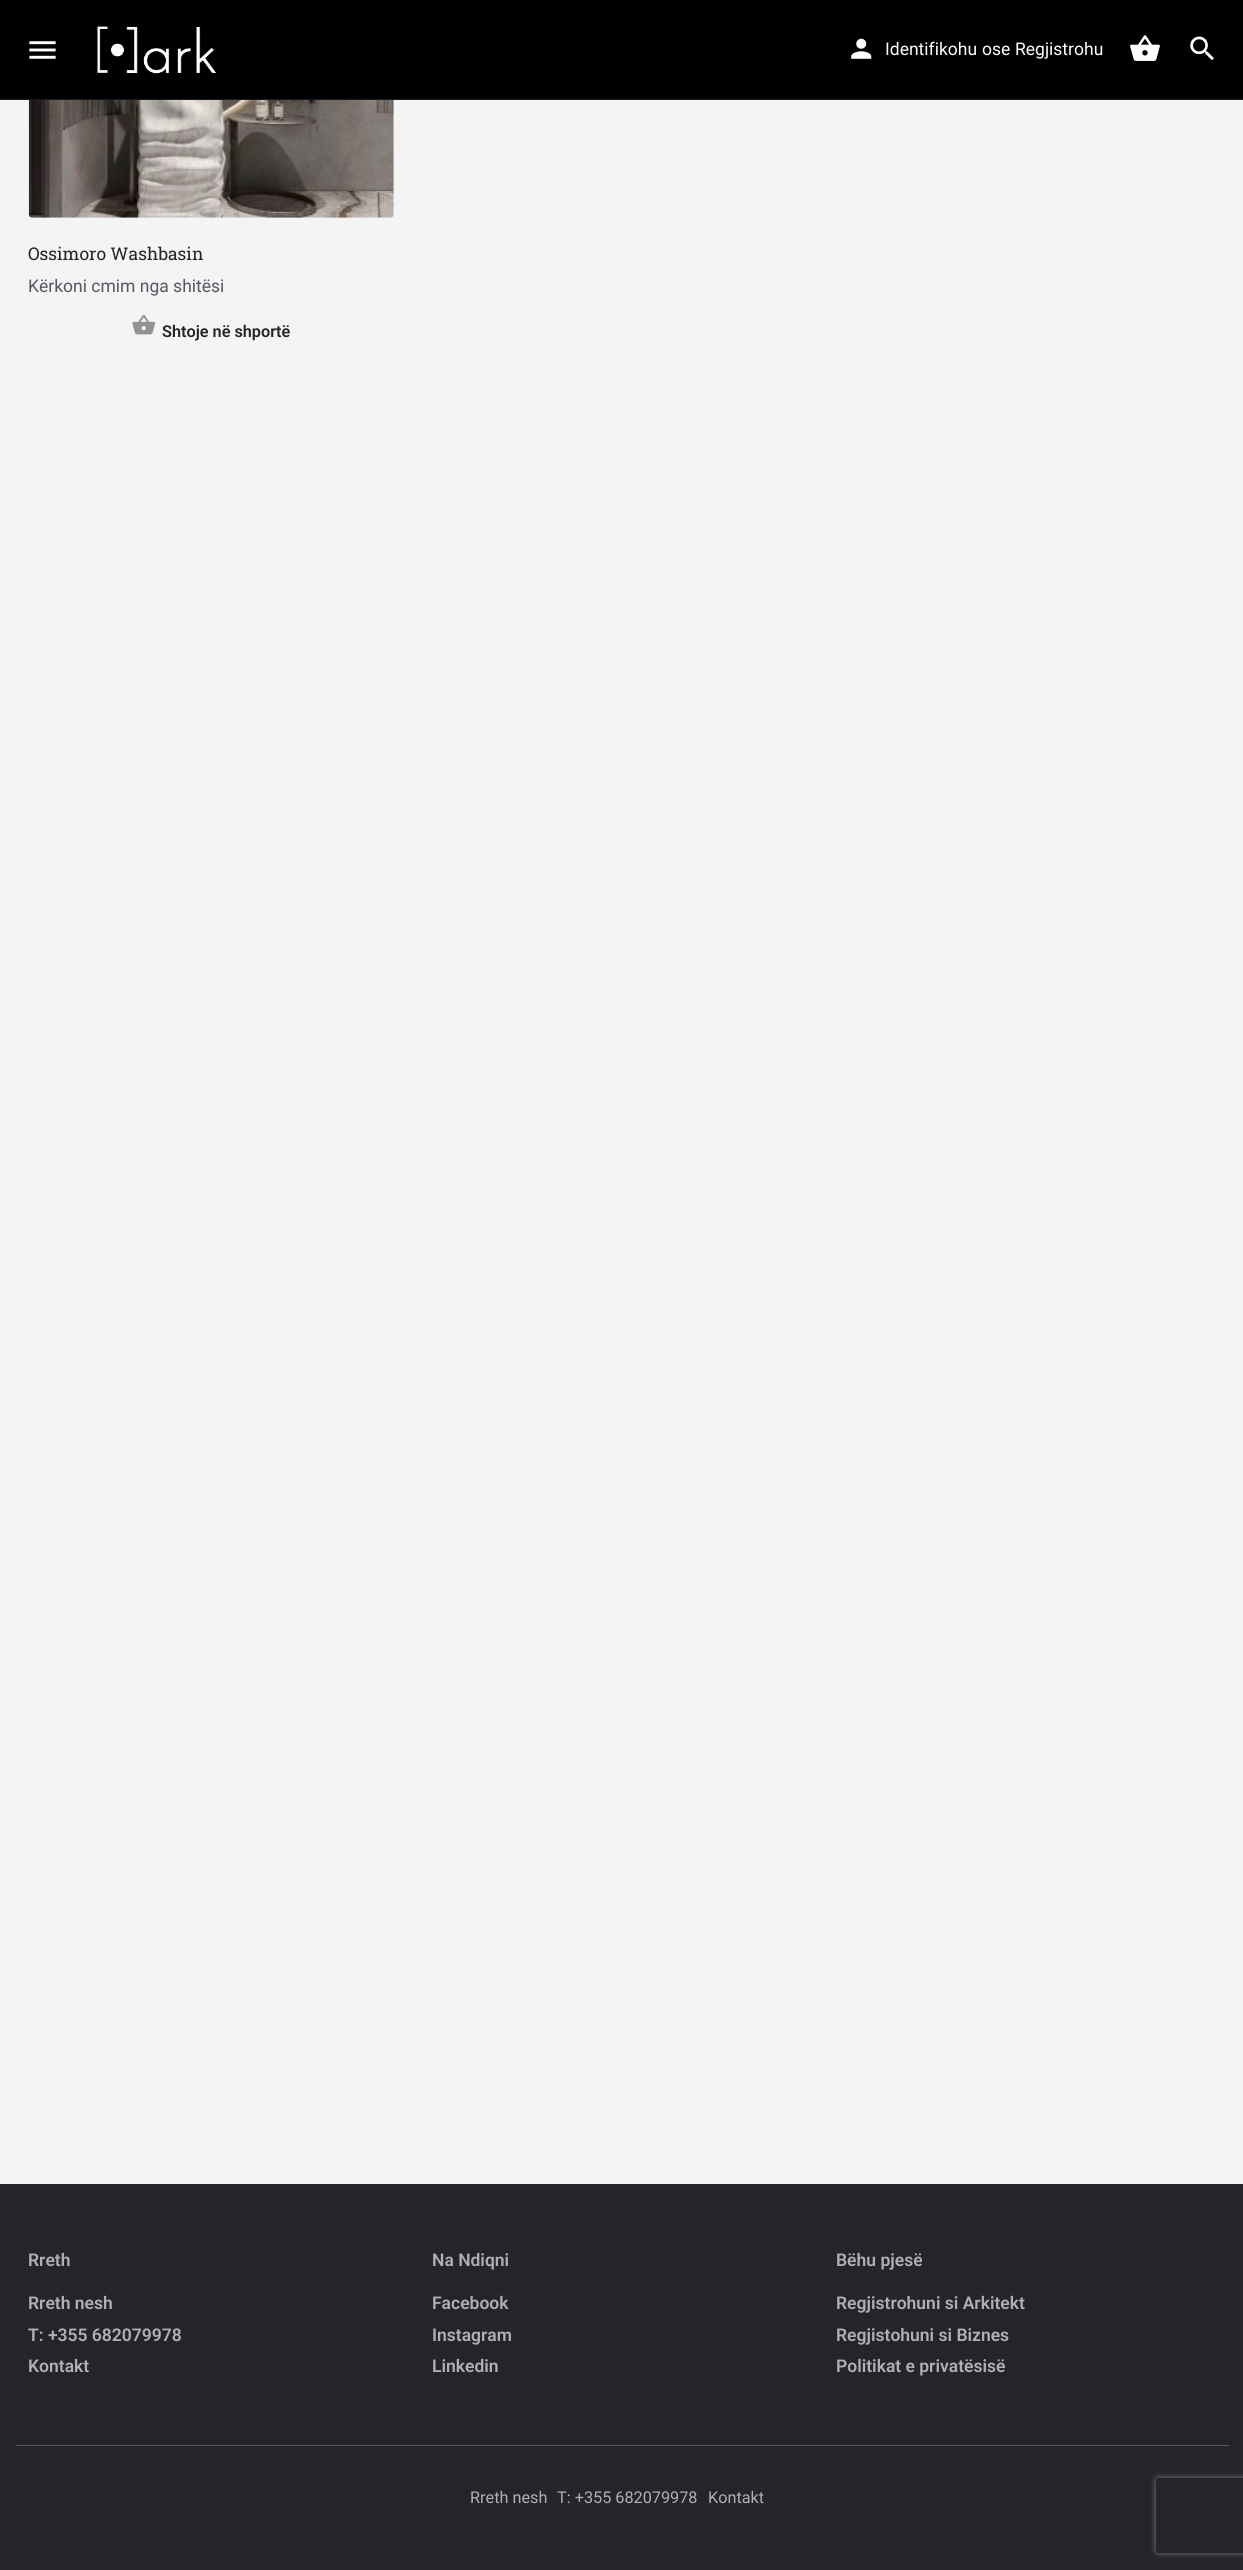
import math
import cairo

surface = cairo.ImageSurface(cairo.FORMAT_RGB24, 1243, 2570)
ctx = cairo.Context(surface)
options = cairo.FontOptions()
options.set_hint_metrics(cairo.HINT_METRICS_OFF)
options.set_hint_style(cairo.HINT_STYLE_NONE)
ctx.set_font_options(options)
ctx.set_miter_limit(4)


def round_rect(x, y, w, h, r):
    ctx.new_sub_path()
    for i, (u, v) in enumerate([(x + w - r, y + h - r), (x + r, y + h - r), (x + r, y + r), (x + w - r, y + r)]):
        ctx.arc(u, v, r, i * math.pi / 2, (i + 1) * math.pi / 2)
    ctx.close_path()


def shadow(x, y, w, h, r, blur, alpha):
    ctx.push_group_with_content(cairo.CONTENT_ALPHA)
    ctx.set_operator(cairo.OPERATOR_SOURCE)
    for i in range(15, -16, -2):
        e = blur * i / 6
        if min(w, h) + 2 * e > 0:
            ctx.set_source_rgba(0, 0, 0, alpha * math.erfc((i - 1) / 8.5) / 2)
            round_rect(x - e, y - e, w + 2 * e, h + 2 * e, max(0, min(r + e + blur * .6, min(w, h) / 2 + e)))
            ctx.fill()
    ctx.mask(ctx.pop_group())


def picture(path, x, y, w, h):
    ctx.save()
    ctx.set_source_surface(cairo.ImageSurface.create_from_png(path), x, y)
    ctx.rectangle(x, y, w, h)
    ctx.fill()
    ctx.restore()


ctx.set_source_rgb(0.957, 0.957, 0.957)
ctx.paint()
ctx.set_source_rgb(0, 0, 0)
ctx.rectangle(0, 0, 1243, 99)
ctx.fill()
ctx.set_source_rgb(0.094, 0.106, 0.118)
ctx.rectangle(0, 99, 1243, 1)
ctx.fill()
picture("img1.png", 29, 41, 27, 18)
picture("img2.png", 97, 26, 119, 48)
picture("img3.png", 851, 38, 21, 21)
ctx.select_font_face("Roboto")
ctx.set_font_size(17.5)
ctx.set_source_rgb(1, 1, 1)
ctx.move_to(885, 55)
ctx.show_text("Identifikohu")
ctx.move_to(982, 55)
ctx.show_text("ose")
ctx.move_to(1015, 55)
ctx.show_text("Regjistrohu")
picture("img4.png", 1130, 35, 30, 26)
picture("img5.png", 1190, 36, 24, 25)
picture("img6.png", 28, 100, 366, 118)
ctx.select_font_face("Roboto Slab")
ctx.set_source_rgb(0.141, 0.141, 0.161)
ctx.move_to(28, 260)
ctx.show_text("Ossimoro Washbasin")
ctx.select_font_face("Roboto")
ctx.set_source_rgb(0.337, 0.337, 0.384)
ctx.move_to(28, 292)
ctx.show_text("Kërkoni cmim nga shitësi")
picture("img7.png", 132, 315, 24, 20)
ctx.select_font_face("Roboto SemiBold")
ctx.set_font_size(16.25)
ctx.set_source_rgb(0.141, 0.141, 0.161)
ctx.move_to(162, 337)
ctx.show_text("Shtoje në shportë")
ctx.set_source_rgb(0.141, 0.145, 0.161)
ctx.rectangle(0, 2184, 1243, 386)
ctx.fill()
ctx.set_source_rgb(0.357, 0.357, 0.369)
ctx.rectangle(16, 2445, 1213, 1)
ctx.fill()
ctx.set_font_size(17.5)
ctx.set_source_rgb(0.686, 0.69, 0.694)
ctx.move_to(28, 2266)
ctx.show_text("Rreth")
ctx.move_to(28, 2309)
ctx.show_text("Rreth nesh")
ctx.move_to(28, 2341)
ctx.show_text("T: +355 682079978")
ctx.move_to(28, 2372)
ctx.show_text("Kontakt")
ctx.move_to(432, 2266)
ctx.show_text("Na Ndiqni")
ctx.move_to(432, 2309)
ctx.show_text("Facebook")
ctx.move_to(432, 2341)
ctx.show_text("Instagram")
ctx.move_to(432, 2372)
ctx.show_text("Linkedin")
ctx.move_to(836, 2266)
ctx.show_text("Bëhu pjesë")
ctx.move_to(836, 2309)
ctx.show_text("Regjistrohuni si Arkitekt")
ctx.move_to(836, 2341)
ctx.show_text("Regjistohuni si Biznes")
ctx.move_to(836, 2372)
ctx.show_text("Politikat e privatësisë")
ctx.select_font_face("Roboto")
ctx.set_font_size(16.25)
ctx.move_to(470, 2503)
ctx.show_text("Rreth nesh")
ctx.move_to(557, 2503)
ctx.show_text("T: +355 682079978")
ctx.move_to(708, 2503)
ctx.show_text("Kontakt")
ctx.save()
ctx.set_fill_rule(cairo.FILL_RULE_EVEN_ODD)
ctx.new_path()
ctx.move_to(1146, 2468)
ctx.line_to(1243, 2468)
ctx.line_to(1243, 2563)
ctx.line_to(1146, 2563)
ctx.close_path()
ctx.move_to(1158.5, 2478)
ctx.line_to(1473.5, 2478)
ctx.curve_to(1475, 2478, 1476, 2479, 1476, 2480.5)
ctx.line_to(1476, 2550.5)
ctx.curve_to(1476, 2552, 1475, 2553, 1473.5, 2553)
ctx.line_to(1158.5, 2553)
ctx.curve_to(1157, 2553, 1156, 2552, 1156, 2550.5)
ctx.line_to(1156, 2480.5)
ctx.curve_to(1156, 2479, 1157, 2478, 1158.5, 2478)
ctx.close_path()
ctx.clip()
ctx.set_source_rgb(0.502, 0.502, 0.502)
shadow(1156, 2478, 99, 75, 2.5, 3, 1)
ctx.restore()
surface.write_to_png("page.png")
